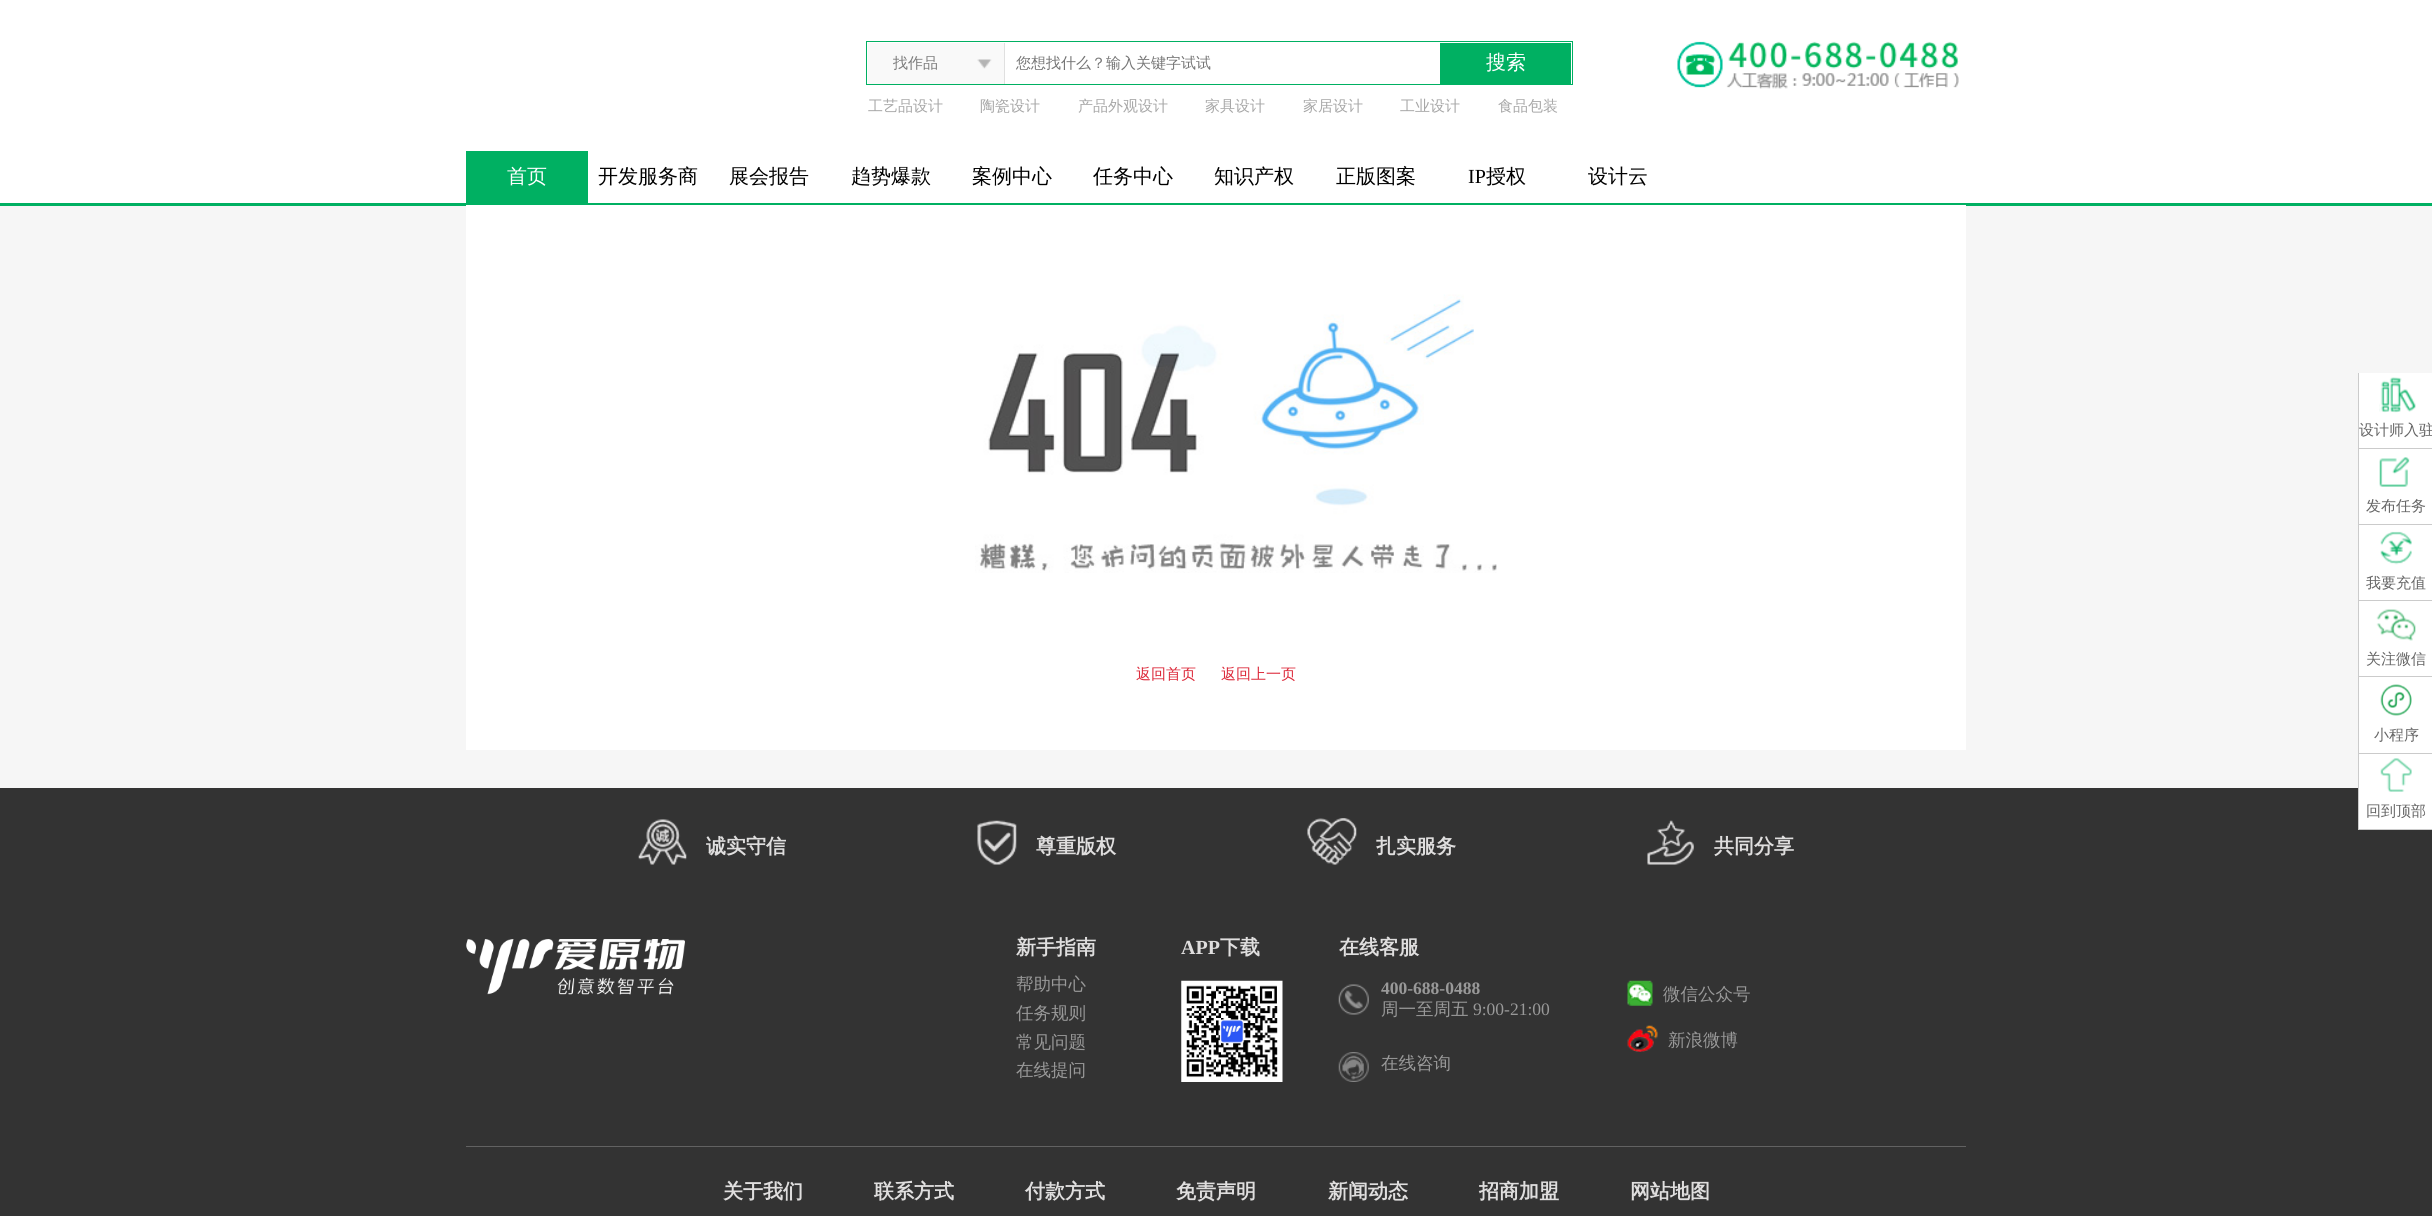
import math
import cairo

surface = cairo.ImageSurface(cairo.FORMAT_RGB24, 2432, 1216)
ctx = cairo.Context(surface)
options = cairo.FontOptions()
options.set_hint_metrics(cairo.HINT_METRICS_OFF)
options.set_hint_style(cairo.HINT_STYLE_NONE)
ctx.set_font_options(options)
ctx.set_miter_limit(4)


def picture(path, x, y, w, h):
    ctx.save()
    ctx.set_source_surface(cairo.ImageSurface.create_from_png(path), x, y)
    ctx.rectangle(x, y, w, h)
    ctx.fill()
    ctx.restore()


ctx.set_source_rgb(0.961, 0.961, 0.961)
ctx.paint()
ctx.set_source_rgb(1, 1, 1)
ctx.rectangle(0, 0, 2432, 203)
ctx.fill()
ctx.rectangle(866.5, 41.5, 706, 43)
ctx.set_source_rgb(0, 0.69, 0.384)
ctx.set_line_width(1)
ctx.stroke()
ctx.set_source_rgb(0.973, 0.973, 0.973)
ctx.rectangle(868, 43, 136, 41)
ctx.fill()
ctx.set_source_rgb(0.878, 0.878, 0.878)
ctx.rectangle(1004, 43, 1, 41)
ctx.fill()
ctx.select_font_face("WenQuanYi Zen Hei Medium")
ctx.set_font_size(15)
ctx.set_source_rgb(0.482, 0.482, 0.482)
ctx.move_to(893, 68)
ctx.show_text("找作品")
picture("img1.png", 977, 59, 15, 10)
ctx.set_source_rgb(0.459, 0.459, 0.459)
ctx.move_to(1016, 68)
ctx.show_text("您想找什么？输入关键字试试")
ctx.set_source_rgb(0, 0.69, 0.384)
ctx.rectangle(1440, 43, 131, 41)
ctx.fill()
ctx.set_font_size(20)
ctx.set_source_rgb(1, 1, 1)
ctx.move_to(1486, 69)
ctx.show_text("搜索")
ctx.set_font_size(15)
ctx.set_source_rgb(0.655, 0.655, 0.655)
ctx.move_to(868, 111)
ctx.show_text("工艺品设计")
ctx.move_to(980, 111)
ctx.show_text("陶瓷设计")
ctx.move_to(1078, 111)
ctx.show_text("产品外观设计")
ctx.move_to(1205, 111)
ctx.show_text("家具设计")
ctx.move_to(1303, 111)
ctx.show_text("家居设计")
ctx.move_to(1400, 111)
ctx.show_text("工业设计")
ctx.move_to(1498, 111)
ctx.show_text("食品包装")
picture("img2.png", 1677, 41, 282, 48)
ctx.set_source_rgb(0, 0.69, 0.384)
ctx.rectangle(0, 203, 2432, 3)
ctx.fill()
ctx.rectangle(466, 151, 122, 52)
ctx.fill()
ctx.set_font_size(20)
ctx.set_source_rgb(1, 1, 1)
ctx.move_to(507, 183)
ctx.show_text("首页")
ctx.set_source_rgb(0, 0, 0)
ctx.move_to(598, 183)
ctx.show_text("开发服务商")
ctx.move_to(729, 183)
ctx.show_text("展会报告")
ctx.move_to(851, 183)
ctx.show_text("趋势爆款")
ctx.move_to(972, 183)
ctx.show_text("案例中心")
ctx.move_to(1093, 183)
ctx.show_text("任务中心")
ctx.move_to(1214, 183)
ctx.show_text("知识产权")
ctx.move_to(1336, 183)
ctx.show_text("正版图案")
ctx.select_font_face("Liberation Serif")
ctx.move_to(1468, 183)
ctx.show_text("IP")
ctx.select_font_face("WenQuanYi Zen Hei Medium")
ctx.move_to(1486, 183)
ctx.show_text("授权")
ctx.move_to(1588, 183)
ctx.show_text("设计云")
ctx.set_source_rgb(1, 1, 1)
ctx.rectangle(466, 205, 1500, 545)
ctx.fill()
picture("img3.png", 975, 294, 522, 279)
ctx.set_font_size(15)
ctx.set_source_rgb(0.863, 0.153, 0.22)
ctx.move_to(1136, 679)
ctx.show_text("返回首页")
ctx.move_to(1221, 679)
ctx.show_text("返回上一页")
ctx.set_source_rgb(1, 1, 1)
ctx.rectangle(2359, 373, 73, 75)
ctx.fill()
ctx.set_source_rgb(0.796, 0.796, 0.796)
ctx.rectangle(2358, 448, 74, 1)
ctx.fill()
ctx.rectangle(2358, 373, 1, 76)
ctx.fill()
picture("img4.png", 2379, 377, 37, 36)
ctx.set_source_rgb(0.396, 0.396, 0.396)
ctx.move_to(2359, 435)
ctx.show_text("设计师入驻")
ctx.set_source_rgb(1, 1, 1)
ctx.rectangle(2359, 449, 73, 75)
ctx.fill()
ctx.set_source_rgb(0.796, 0.796, 0.796)
ctx.rectangle(2358, 524, 74, 1)
ctx.fill()
ctx.rectangle(2358, 449, 1, 76)
ctx.fill()
picture("img5.png", 2379, 457, 31, 30)
ctx.set_source_rgb(0.396, 0.396, 0.396)
ctx.move_to(2366, 511)
ctx.show_text("发布任务")
ctx.set_source_rgb(1, 1, 1)
ctx.rectangle(2359, 525, 73, 75)
ctx.fill()
ctx.set_source_rgb(0.796, 0.796, 0.796)
ctx.rectangle(2358, 600, 74, 1)
ctx.fill()
ctx.rectangle(2358, 525, 1, 76)
ctx.fill()
picture("img6.png", 2380, 531, 32, 34)
ctx.set_source_rgb(0.396, 0.396, 0.396)
ctx.move_to(2366, 588)
ctx.show_text("我要充值")
ctx.set_source_rgb(1, 1, 1)
ctx.rectangle(2359, 601, 73, 152)
ctx.fill()
ctx.set_source_rgb(0.796, 0.796, 0.796)
ctx.rectangle(2358, 676, 74, 1)
ctx.fill()
ctx.rectangle(2358, 601, 1, 77)
ctx.fill()
picture("img7.png", 2376, 609, 40, 32)
ctx.set_source_rgb(0.396, 0.396, 0.396)
ctx.move_to(2366, 664)
ctx.show_text("关注微信")
ctx.set_source_rgb(0.796, 0.796, 0.796)
ctx.rectangle(2358, 753, 74, 1)
ctx.fill()
ctx.rectangle(2358, 678, 1, 76)
ctx.fill()
picture("img8.png", 2380, 684, 32, 32)
ctx.set_source_rgb(0.396, 0.396, 0.396)
ctx.move_to(2374, 740)
ctx.show_text("小程序")
ctx.set_source_rgb(0.2, 0.2, 0.2)
ctx.rectangle(0, 788, 2432, 428)
ctx.fill()
ctx.set_source_rgb(1, 1, 1)
ctx.rectangle(2359, 754, 73, 75)
ctx.fill()
ctx.set_source_rgb(0.796, 0.796, 0.796)
ctx.rectangle(2358, 829, 74, 1)
ctx.fill()
ctx.rectangle(2358, 754, 1, 76)
ctx.fill()
picture("img9.png", 2380, 758, 32, 34)
ctx.set_source_rgb(0.396, 0.396, 0.396)
ctx.move_to(2366, 816)
ctx.show_text("回到顶部")
picture("img10.png", 638, 819, 49, 46)
ctx.select_font_face("WenQuanYi Zen Hei", cairo.FONT_SLANT_NORMAL, cairo.FONT_WEIGHT_BOLD)
ctx.set_font_size(20)
ctx.set_source_rgb(0.875, 0.871, 0.871)
ctx.move_to(706, 853)
ctx.show_text("诚实守信")
picture("img11.png", 977, 820, 40, 45)
ctx.move_to(1036, 853)
ctx.show_text("尊重版权")
picture("img12.png", 1307, 818, 50, 47)
ctx.move_to(1376, 853)
ctx.show_text("扎实服务")
picture("img13.png", 1647, 820, 47, 45)
ctx.move_to(1714, 853)
ctx.show_text("共同分享")
picture("img14.png", 466, 939, 219, 56)
ctx.move_to(1016, 954)
ctx.show_text("新手指南")
ctx.select_font_face("WenQuanYi Zen Hei Medium")
ctx.set_font_size(17.5)
ctx.set_source_rgb(0.6, 0.6, 0.6)
ctx.move_to(1016, 990)
ctx.show_text("帮助中心")
ctx.move_to(1016, 1019)
ctx.show_text("任务规则")
ctx.move_to(1016, 1048)
ctx.show_text("常见问题")
ctx.move_to(1016, 1076)
ctx.show_text("在线提问")
ctx.select_font_face("Liberation Serif", cairo.FONT_SLANT_NORMAL, cairo.FONT_WEIGHT_BOLD)
ctx.set_font_size(20)
ctx.set_source_rgb(0.875, 0.871, 0.871)
ctx.move_to(1181, 954)
ctx.show_text("APP")
ctx.select_font_face("WenQuanYi Zen Hei", cairo.FONT_SLANT_NORMAL, cairo.FONT_WEIGHT_BOLD)
ctx.move_to(1220, 954)
ctx.show_text("下载")
picture("img15.png", 1181, 980, 102, 102)
ctx.move_to(1339, 954)
ctx.show_text("在线客服")
picture("img16.png", 1338, 984, 31, 31)
ctx.select_font_face("Liberation Serif", cairo.FONT_SLANT_NORMAL, cairo.FONT_WEIGHT_BOLD)
ctx.set_font_size(17.5)
ctx.set_source_rgb(0.6, 0.6, 0.6)
ctx.move_to(1381, 994)
ctx.show_text("400-688-0488")
ctx.select_font_face("WenQuanYi Zen Hei Medium")
ctx.move_to(1381, 1015)
ctx.show_text("周一至周五")
ctx.select_font_face("Liberation Serif")
ctx.move_to(1473, 1015)
ctx.show_text("9:00-21:00")
picture("img17.png", 1338, 1052, 31, 30)
ctx.select_font_face("WenQuanYi Zen Hei Medium")
ctx.move_to(1381, 1069)
ctx.show_text("在线咨询")
picture("img18.png", 1627, 980, 26, 26)
ctx.move_to(1663, 1000)
ctx.show_text("微信公众号")
picture("img19.png", 1627, 1025, 31, 27)
ctx.move_to(1668, 1046)
ctx.show_text("新浪微博")
ctx.set_source_rgb(0.384, 0.384, 0.384)
ctx.rectangle(466, 1146, 1500, 1)
ctx.fill()
ctx.select_font_face("WenQuanYi Zen Hei", cairo.FONT_SLANT_NORMAL, cairo.FONT_WEIGHT_BOLD)
ctx.set_font_size(20)
ctx.set_source_rgb(0.875, 0.871, 0.871)
ctx.move_to(723, 1198)
ctx.show_text("关于我们")
ctx.move_to(874, 1198)
ctx.show_text("联系方式")
ctx.move_to(1025, 1198)
ctx.show_text("付款方式")
ctx.move_to(1176, 1198)
ctx.show_text("免责声明")
ctx.move_to(1328, 1198)
ctx.show_text("新闻动态")
ctx.move_to(1479, 1198)
ctx.show_text("招商加盟")
ctx.move_to(1630, 1198)
ctx.show_text("网站地图")
surface.write_to_png("page.png")
